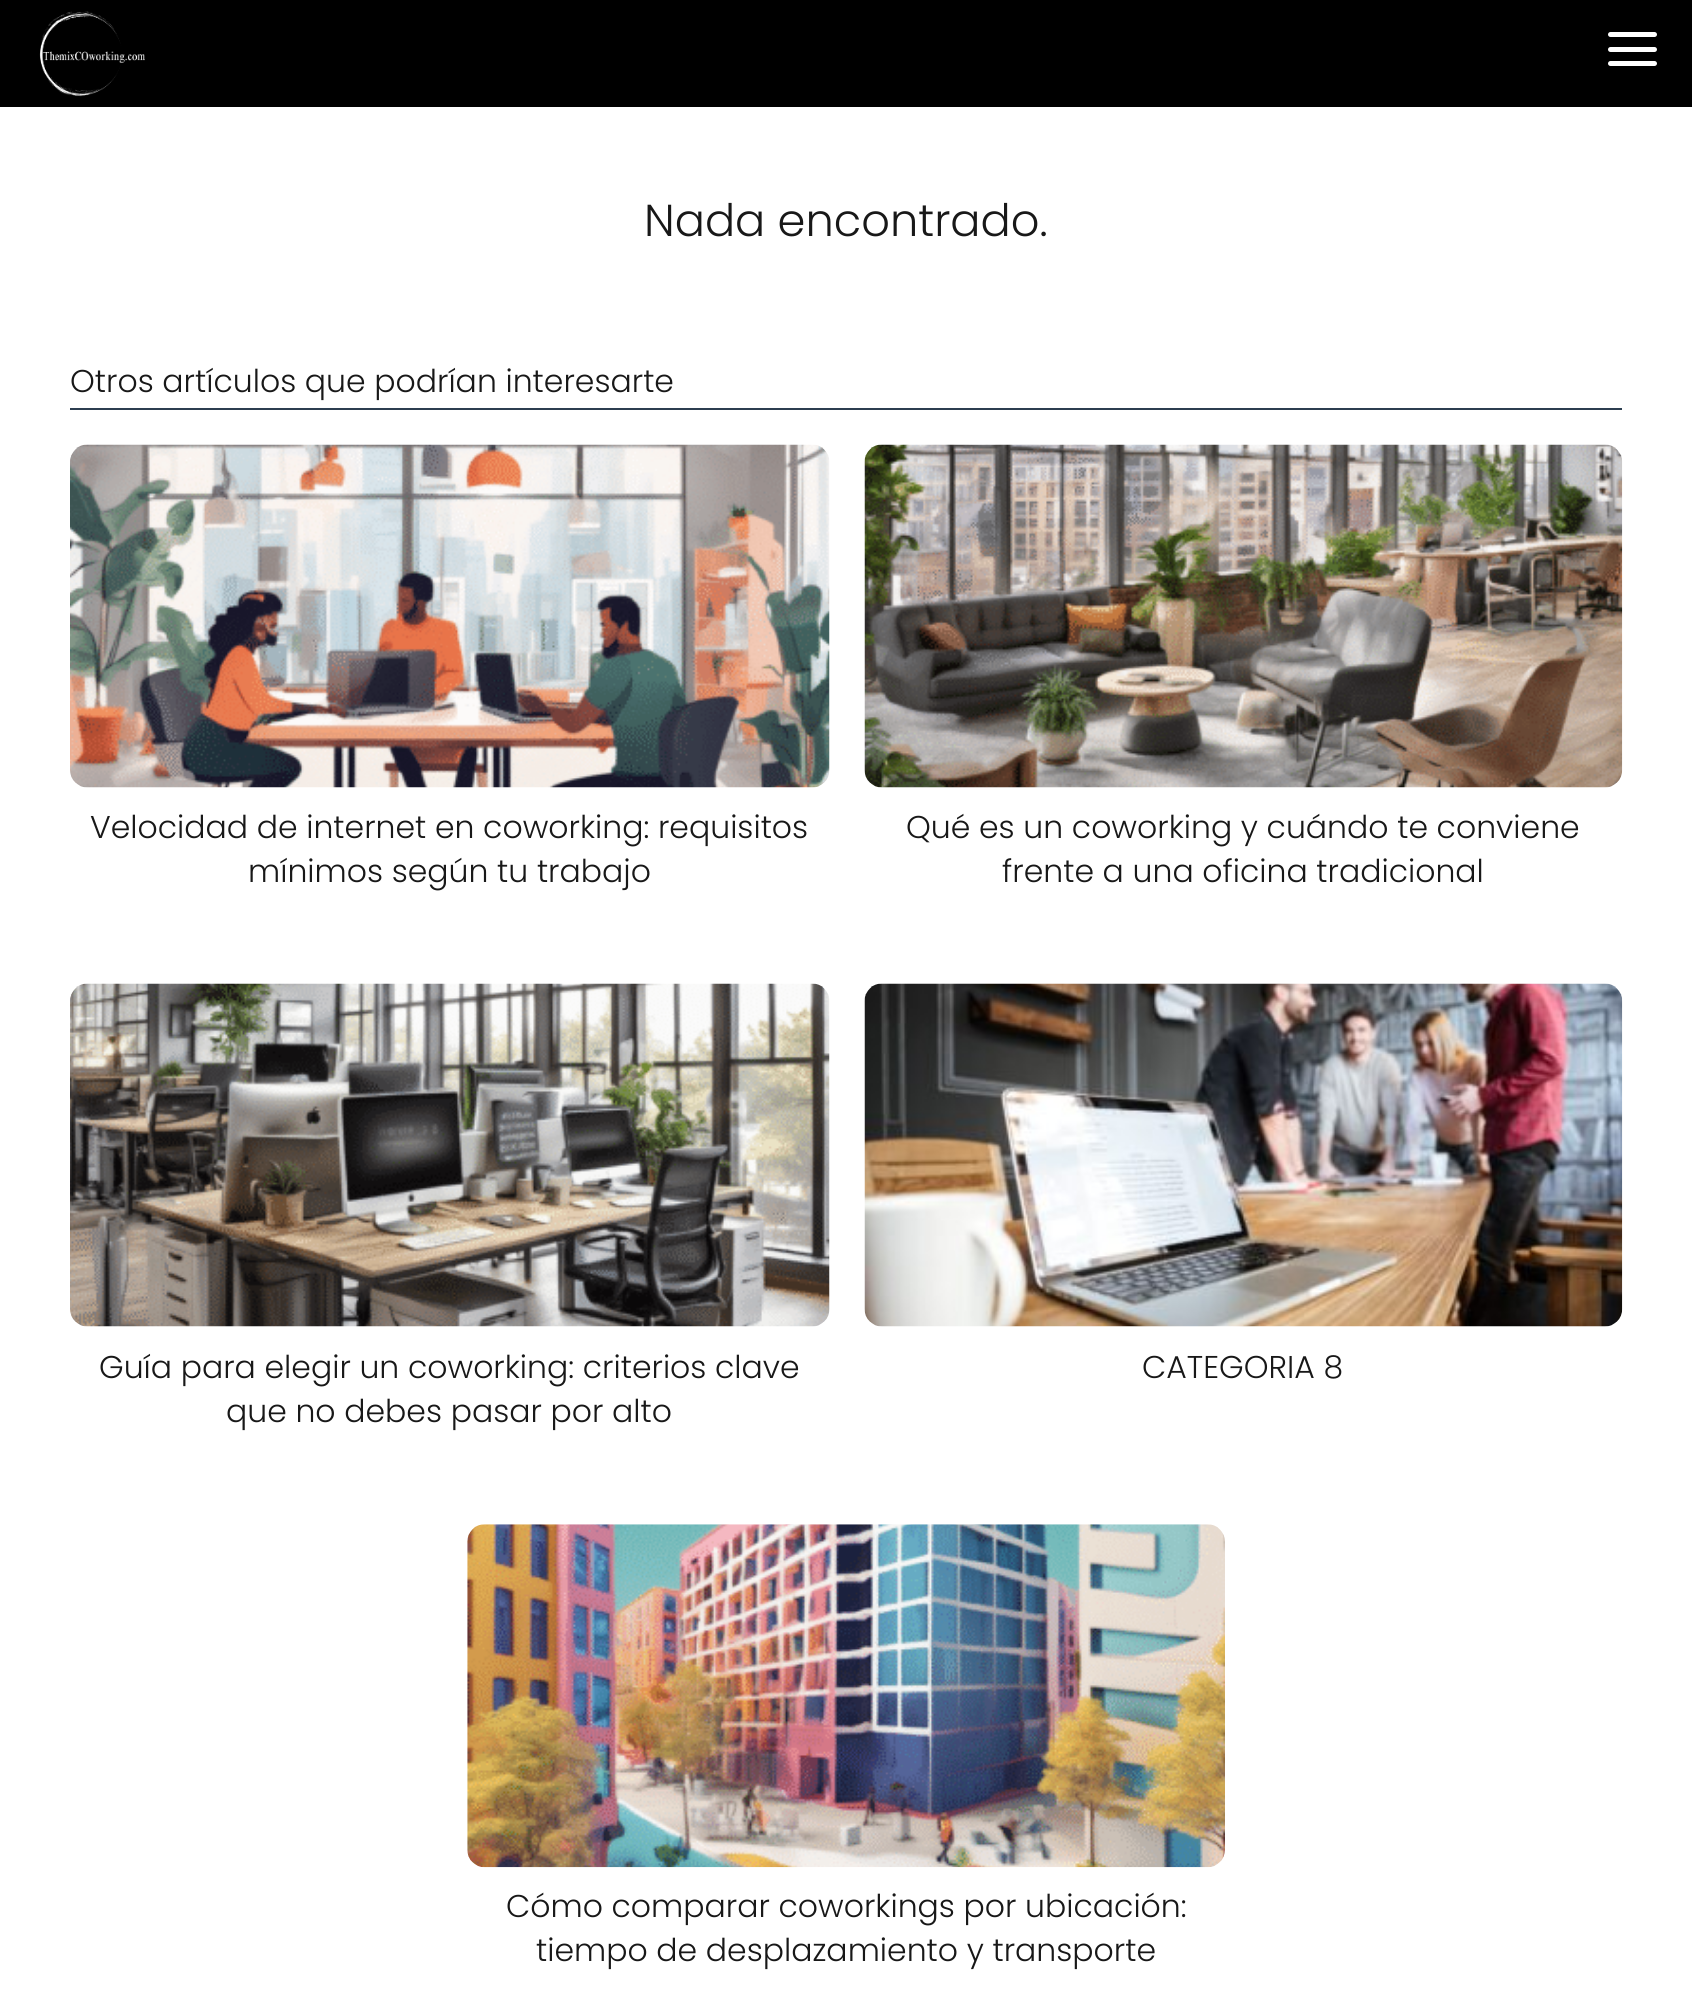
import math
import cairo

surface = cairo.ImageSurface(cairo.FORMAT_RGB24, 1692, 2010)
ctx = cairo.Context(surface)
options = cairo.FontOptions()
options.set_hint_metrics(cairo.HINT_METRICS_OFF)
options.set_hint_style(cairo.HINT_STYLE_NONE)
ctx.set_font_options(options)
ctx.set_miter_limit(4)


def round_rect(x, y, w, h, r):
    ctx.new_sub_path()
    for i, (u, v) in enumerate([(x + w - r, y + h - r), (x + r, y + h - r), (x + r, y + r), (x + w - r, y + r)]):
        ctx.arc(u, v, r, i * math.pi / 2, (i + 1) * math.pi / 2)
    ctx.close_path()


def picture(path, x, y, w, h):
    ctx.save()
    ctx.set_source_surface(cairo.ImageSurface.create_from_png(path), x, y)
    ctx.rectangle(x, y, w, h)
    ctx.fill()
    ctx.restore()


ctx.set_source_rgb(1, 1, 1)
ctx.paint()
ctx.set_source_rgb(0, 0, 0)
ctx.rectangle(0, 0, 1692, 107)
ctx.fill()
picture("img1.png", 39, 11, 106, 86)
ctx.set_source_rgb(1, 1, 1)
round_rect(1608, 32, 49, 5, 2.5)
ctx.fill()
round_rect(1608, 47, 49, 5, 2.5)
ctx.fill()
round_rect(1608, 61, 49, 5, 2.5)
ctx.fill()
ctx.select_font_face("Poppins Light")
ctx.set_font_size(44.75)
ctx.set_source_rgb(0.094, 0.094, 0.094)
ctx.move_to(644, 236)
ctx.show_text("Nada encontrado.")
ctx.set_source_rgb(0.173, 0.243, 0.314)
ctx.rectangle(70, 408, 1552, 2)
ctx.fill()
ctx.set_font_size(31.5)
ctx.set_source_rgb(0.094, 0.094, 0.094)
ctx.move_to(70, 392)
ctx.show_text("Otros artículos que podrían interesarte")
picture("img2.png", 70, 444, 760, 344)
ctx.move_to(90, 838)
ctx.show_text("Velocidad de internet en coworking: requisitos")
ctx.move_to(248, 882)
ctx.show_text("mínimos según tu trabajo")
picture("img3.png", 864, 444, 759, 344)
ctx.move_to(906, 838)
ctx.show_text("Qué es un coworking y cuándo te conviene")
ctx.move_to(1002, 882)
ctx.show_text("frente a una oficina tradicional")
picture("img4.png", 70, 983, 760, 344)
ctx.move_to(99, 1378)
ctx.show_text("Guía para elegir un coworking: criterios clave")
ctx.move_to(226, 1422)
ctx.show_text("que no debes pasar por alto")
picture("img5.png", 864, 983, 759, 344)
ctx.move_to(1142, 1378)
ctx.show_text("CATEGORIA 8")
picture("img6.png", 467, 1524, 758, 344)
ctx.move_to(506, 1917)
ctx.show_text("Cómo comparar coworkings por ubicación:")
ctx.move_to(536, 1961)
ctx.show_text("tiempo de desplazamiento y transporte")
surface.write_to_png("page.png")
